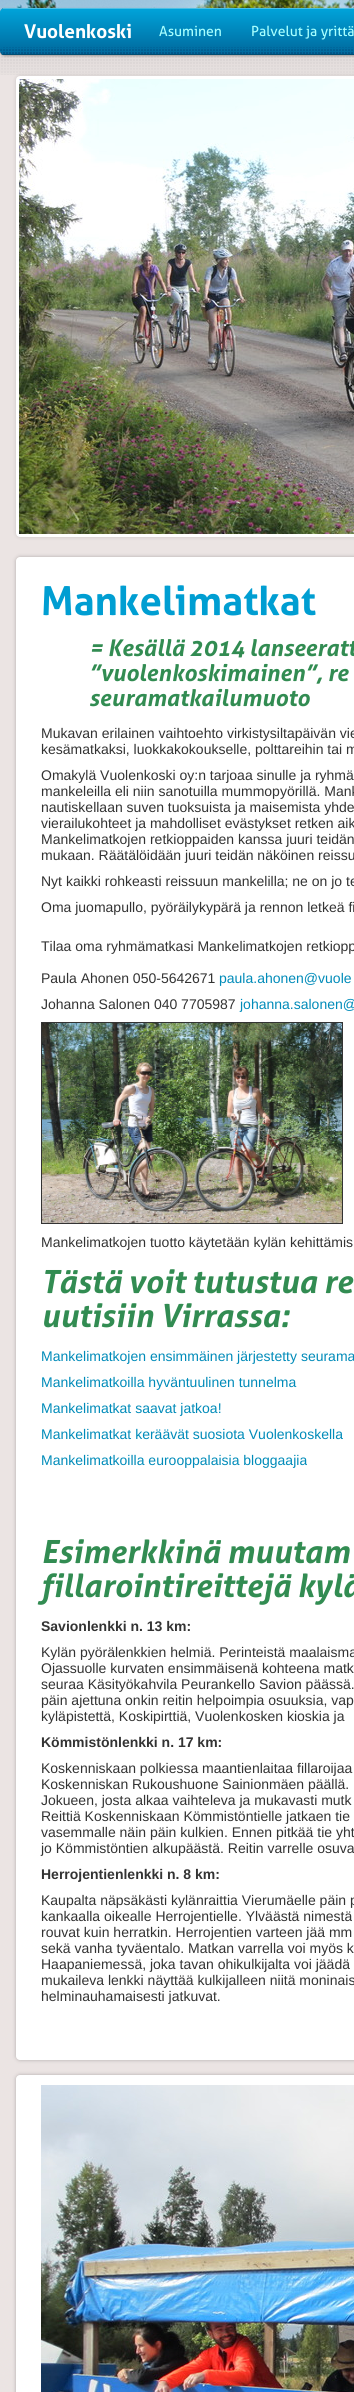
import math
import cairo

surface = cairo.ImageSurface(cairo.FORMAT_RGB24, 354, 2392)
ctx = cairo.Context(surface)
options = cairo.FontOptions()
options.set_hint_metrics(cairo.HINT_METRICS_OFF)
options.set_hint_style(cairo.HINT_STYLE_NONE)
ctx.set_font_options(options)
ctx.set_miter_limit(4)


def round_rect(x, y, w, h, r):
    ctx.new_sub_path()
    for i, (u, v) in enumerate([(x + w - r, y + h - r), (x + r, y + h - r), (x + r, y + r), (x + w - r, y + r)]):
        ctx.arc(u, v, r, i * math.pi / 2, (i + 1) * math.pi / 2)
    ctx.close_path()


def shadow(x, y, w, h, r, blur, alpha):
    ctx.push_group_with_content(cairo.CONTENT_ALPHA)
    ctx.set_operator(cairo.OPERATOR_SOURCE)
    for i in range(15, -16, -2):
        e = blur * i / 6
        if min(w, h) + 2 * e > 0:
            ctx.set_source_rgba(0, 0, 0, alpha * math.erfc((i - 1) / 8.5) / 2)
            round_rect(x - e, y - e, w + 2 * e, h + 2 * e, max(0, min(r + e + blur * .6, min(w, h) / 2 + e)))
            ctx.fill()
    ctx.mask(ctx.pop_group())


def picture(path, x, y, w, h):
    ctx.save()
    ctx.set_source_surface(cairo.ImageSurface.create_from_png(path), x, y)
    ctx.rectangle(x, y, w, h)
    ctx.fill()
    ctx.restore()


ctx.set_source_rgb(1, 1, 1)
ctx.paint()
picture("img1.png", 0, 0, 354, 54)
ctx.set_source_rgb(0, 0, 0)
shadow(0, 49, 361, 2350, 4, 1, 0.3)
ctx.set_source_rgb(0.918, 0.894, 0.89)
round_rect(0, 50, 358, 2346, 4)
ctx.fill()
picture("img3.png", 0, 51, 354, 24)
ctx.set_source_rgb(0, 0, 0)
shadow(0, 9, 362, 47, 5, 1, 0.3)
ctx.set_source_rgb(0, 0.639, 0.851)
round_rect(0, 8, 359, 47, 5)
ctx.fill()
ctx.save()
round_rect(0, 8, 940, 47, 5)
ctx.clip()
gradient = cairo.LinearGradient(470, -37, 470, 9)
gradient.add_color_stop_rgba(0, 0, 0.639, 0.851, 1)
gradient.add_color_stop_rgba(1, 0, 0.404, 0.608, 1)
ctx.set_source(gradient)
ctx.rectangle(0, 8, 3, 1)
ctx.fill()
gradient = cairo.LinearGradient(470, 9, 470, 55)
gradient.add_color_stop_rgba(0, 0, 0.639, 0.851, 1)
gradient.add_color_stop_rgba(1, 0, 0.404, 0.608, 1)
ctx.set_source(gradient)
ctx.new_path()
ctx.move_to(0, 9)
ctx.line_to(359, 9)
ctx.line_to(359, 50)
ctx.curve_to(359, 53, 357, 55, 354, 55)
ctx.line_to(5, 55)
ctx.curve_to(2, 55, 0, 53, 0, 50)
ctx.close_path()
ctx.fill()
ctx.restore()
ctx.set_source_rgb(0.302, 0.749, 0.894)
ctx.rectangle(3, 8, 351, 1)
ctx.fill()
ctx.select_font_face("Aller", cairo.FONT_SLANT_NORMAL, cairo.FONT_WEIGHT_BOLD)
ctx.set_font_size(19)
ctx.set_source_rgb(1, 1, 1)
ctx.move_to(24, 38)
ctx.show_text("Vuolenkoski")
ctx.select_font_face("Aller")
ctx.set_font_size(14)
ctx.set_source_rgb(0.655, 1, 1)
ctx.move_to(159, 36)
ctx.show_text("Asuminen")
ctx.move_to(251, 36)
ctx.show_text("Palvelut ja yrittä")
picture("img2.png", 0, 47, 354, 8)
ctx.set_source_rgb(0, 0, 0)
shadow(16, 76, 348, 461, 4, 2, 0.15)
round_rect(17.5, 77.5, 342, 458, 2.5)
ctx.set_source_rgb(1, 1, 1)
ctx.set_line_width(3)
ctx.stroke()
picture("img4.png", 19, 79, 335, 455)
ctx.set_source_rgb(0, 0, 0)
shadow(16, 557, 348, 1503, 4, 2, 0.25)
ctx.set_source_rgb(1, 1, 1)
round_rect(16, 557, 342, 1503, 4)
ctx.fill()
ctx.select_font_face("Aller", cairo.FONT_SLANT_NORMAL, cairo.FONT_WEIGHT_BOLD)
ctx.set_font_size(40)
ctx.set_source_rgb(0, 0.62, 0.824)
ctx.move_to(41, 615)
ctx.show_text("Mankelimatkat")
ctx.select_font_face("Aller", cairo.FONT_SLANT_ITALIC, cairo.FONT_WEIGHT_BOLD)
ctx.set_font_size(23)
ctx.set_source_rgb(0.196, 0.549, 0.322)
ctx.move_to(89, 656)
ctx.show_text("= Kesällä 2014 lanseeratt")
ctx.move_to(89, 681)
ctx.show_text("”vuolenkoskimainen”, re")
ctx.move_to(89, 706)
ctx.show_text("seuramatkailumuoto")
ctx.select_font_face("Liberation Sans")
ctx.set_font_size(14)
ctx.set_source_rgb(0.2, 0.2, 0.2)
ctx.move_to(41, 738)
ctx.show_text("Mukavan erilainen vaihtoehto virkistysiltapäivän vie")
ctx.move_to(41, 754)
ctx.show_text("kesämatkaksi, luokkakokoukselle, polttareihin tai m")
ctx.move_to(41, 780)
ctx.show_text("Omakylä Vuolenkoski oy:n tarjoaa sinulle ja ryhmä")
ctx.move_to(41, 796)
ctx.show_text("mankeleilla eli niin sanotuilla mummopyörillä. Mank")
ctx.move_to(41, 812)
ctx.show_text("nautiskellaan suven tuoksuista ja maisemista yhde")
ctx.move_to(41, 828)
ctx.show_text("vierailukohteet ja mahdolliset evästykset retken aik")
ctx.move_to(41, 844)
ctx.show_text("Mankelimatkojen retkioppaiden kanssa juuri teidän")
ctx.move_to(41, 860)
ctx.show_text("mukaan. Räätälöidään juuri teidän näköinen reissu")
ctx.move_to(41, 886)
ctx.show_text("Nyt kaikki rohkeasti reissuun mankelilla; ne on jo te")
ctx.move_to(41, 912)
ctx.show_text("Oma juomapullo, pyöräilykypärä ja rennon letkeä fi")
ctx.move_to(41, 951)
ctx.show_text("Tilaa oma ryhmämatkasi Mankelimatkojen retkiopp")
ctx.move_to(41, 983)
ctx.show_text("Paula Ahonen 050-5642671")
ctx.set_source_rgb(0, 0.545, 0.725)
ctx.move_to(219, 983)
ctx.show_text("paula.ahonen@vuole")
ctx.set_source_rgb(0.2, 0.2, 0.2)
ctx.move_to(41, 1009)
ctx.show_text("Johanna Salonen 040 7705987")
ctx.set_source_rgb(0, 0.545, 0.725)
ctx.move_to(240, 1009)
ctx.show_text("johanna.salonen@")
ctx.rectangle(41.5, 1022.5, 301, 201)
ctx.set_source_rgb(0.2, 0.2, 0.2)
ctx.set_line_width(1)
ctx.stroke()
picture("img5.png", 42, 1023, 300, 200)
ctx.move_to(41, 1247)
ctx.show_text("Mankelimatkojen tuotto käytetään kylän kehittämis")
ctx.select_font_face("Aller", cairo.FONT_SLANT_ITALIC, cairo.FONT_WEIGHT_BOLD)
ctx.set_font_size(32)
ctx.set_source_rgb(0.196, 0.549, 0.322)
ctx.move_to(41, 1293)
ctx.show_text("Tästä voit tutustua re")
ctx.move_to(41, 1327)
ctx.show_text("uutisiin Virrassa:")
ctx.select_font_face("Liberation Sans")
ctx.set_font_size(14)
ctx.set_source_rgb(0, 0.545, 0.725)
ctx.move_to(41, 1361)
ctx.show_text("Mankelimatkojen ensimmäinen järjestetty seurama")
ctx.move_to(41, 1387)
ctx.show_text("Mankelimatkoilla hyväntuulinen tunnelma")
ctx.move_to(41, 1413)
ctx.show_text("Mankelimatkat saavat jatkoa!")
ctx.move_to(41, 1439)
ctx.show_text("Mankelimatkat keräävät suosiota Vuolenkoskella")
ctx.move_to(41, 1465)
ctx.show_text("Mankelimatkoilla eurooppalaisia bloggaajia")
ctx.select_font_face("Aller", cairo.FONT_SLANT_ITALIC, cairo.FONT_WEIGHT_BOLD)
ctx.set_font_size(32)
ctx.set_source_rgb(0.196, 0.549, 0.322)
ctx.move_to(41, 1563)
ctx.show_text("Esimerkkinä muutam")
ctx.move_to(41, 1597)
ctx.show_text("fillarointireittejä kylä")
ctx.select_font_face("Liberation Sans", cairo.FONT_SLANT_NORMAL, cairo.FONT_WEIGHT_BOLD)
ctx.set_font_size(14)
ctx.set_source_rgb(0.2, 0.2, 0.2)
ctx.move_to(41, 1631)
ctx.show_text("Savionlenkki n. 13 km:")
ctx.select_font_face("Liberation Sans")
ctx.move_to(41, 1657)
ctx.show_text("Kylän pyörälenkkien helmiä. Perinteistä maalaisma")
ctx.move_to(41, 1673)
ctx.show_text("Ojassuolle kurvaten ensimmäisenä kohteena matk")
ctx.move_to(41, 1689)
ctx.show_text("seuraa Käsityökahvila Peurankello Savion päässä.")
ctx.move_to(41, 1705)
ctx.show_text("päin ajettuna onkin reitin helpoimpia osuuksia, vap")
ctx.move_to(41, 1721)
ctx.show_text("kyläpistettä, Koskipirttiä, Vuolenkosken kioskia ja")
ctx.select_font_face("Liberation Sans", cairo.FONT_SLANT_NORMAL, cairo.FONT_WEIGHT_BOLD)
ctx.move_to(41, 1747)
ctx.show_text("Kömmistönlenkki n. 17 km:")
ctx.select_font_face("Liberation Sans")
ctx.move_to(41, 1773)
ctx.show_text("Koskenniskaan polkiessa maantienlaitaa fillaroijaa")
ctx.move_to(41, 1789)
ctx.show_text("Koskenniskan Rukoushuone Sainionmäen päällä.")
ctx.move_to(41, 1805)
ctx.show_text("Jokueen, josta alkaa vaihteleva ja mukavasti mutk")
ctx.move_to(41, 1821)
ctx.show_text("Reittiä Koskenniskaan Kömmistöntielle jatkaen tie")
ctx.move_to(41, 1837)
ctx.show_text("vasemmalle näin päin kulkien. Ennen pitkää tie yht")
ctx.move_to(41, 1853)
ctx.show_text("jo Kömmistöntien alkupäästä. Reitin varrelle osuva")
ctx.select_font_face("Liberation Sans", cairo.FONT_SLANT_NORMAL, cairo.FONT_WEIGHT_BOLD)
ctx.move_to(41, 1879)
ctx.show_text("Herrojentienlenkki n. 8 km:")
ctx.select_font_face("Liberation Sans")
ctx.move_to(41, 1905)
ctx.show_text("Kaupalta näpsäkästi kylänraittia Vierumäelle päin p")
ctx.move_to(41, 1921)
ctx.show_text("kankaalla oikealle Herrojentielle. Ylväästä nimestä")
ctx.move_to(41, 1937)
ctx.show_text("rouvat kuin herratkin. Herrojentien varteen jää mm")
ctx.move_to(41, 1953)
ctx.show_text("sekä vanha tyväentalo. Matkan varrella voi myös k")
ctx.move_to(41, 1969)
ctx.show_text("Haapaniemessä, joka tavan ohikulkijalta voi jäädä")
ctx.move_to(41, 1985)
ctx.show_text("mukaileva lenkki näyttää kulkijalleen niitä moninais")
ctx.move_to(41, 2001)
ctx.show_text("helminauhamaisesti jatkuvat.")
ctx.set_source_rgb(0, 0, 0)
shadow(16, 2075, 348, 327, 4, 2, 0.25)
ctx.set_source_rgb(1, 1, 1)
round_rect(16, 2075, 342, 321, 4)
ctx.fill()
picture("img6.png", 41, 2085, 313, 307)
surface.write_to_png("page.png")
